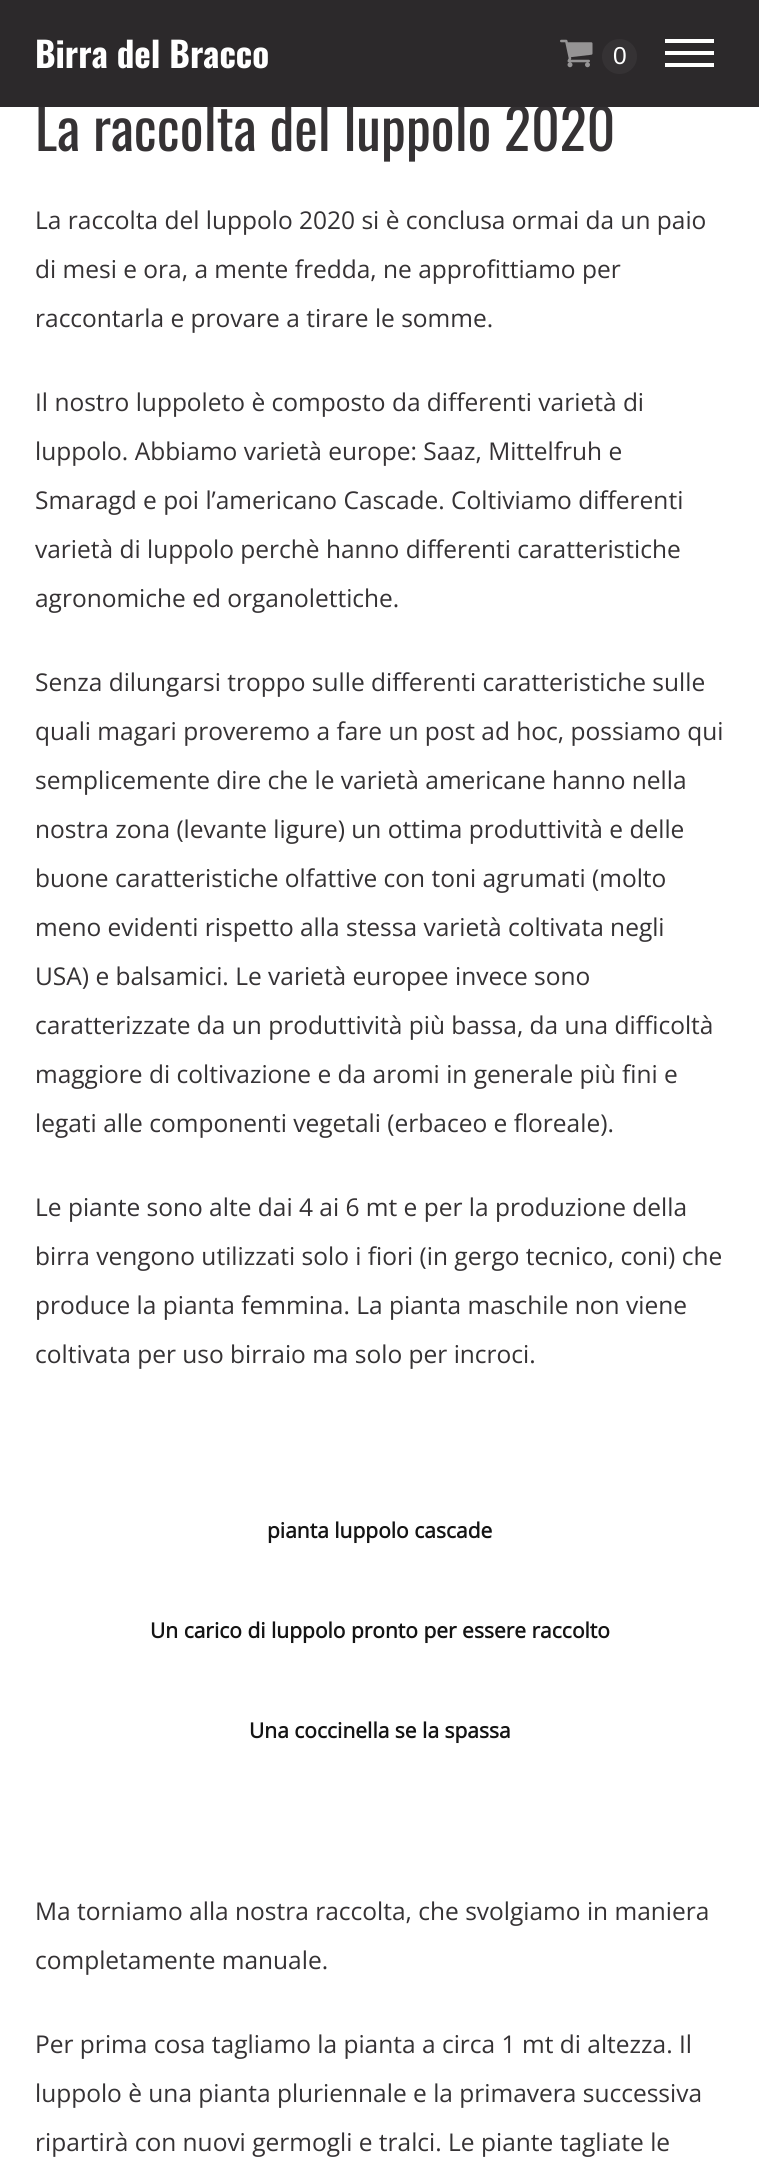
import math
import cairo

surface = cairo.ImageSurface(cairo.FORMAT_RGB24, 759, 2159)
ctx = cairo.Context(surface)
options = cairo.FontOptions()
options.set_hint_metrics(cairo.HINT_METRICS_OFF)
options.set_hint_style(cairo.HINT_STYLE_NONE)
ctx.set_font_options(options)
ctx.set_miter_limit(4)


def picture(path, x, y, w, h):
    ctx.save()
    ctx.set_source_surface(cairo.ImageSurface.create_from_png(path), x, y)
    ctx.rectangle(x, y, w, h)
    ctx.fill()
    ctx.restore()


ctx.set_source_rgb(1, 1, 1)
ctx.paint()
ctx.select_font_face("Oswald")
ctx.set_font_size(56)
ctx.set_source_rgb(0.208, 0.196, 0.204)
ctx.move_to(35, 151)
ctx.show_text("La raccolta del luppolo 2020")
ctx.set_source_rgb(0.173, 0.161, 0.169)
ctx.rectangle(0, 0, 759, 107)
ctx.fill()
ctx.select_font_face("Oswald", cairo.FONT_SLANT_NORMAL, cairo.FONT_WEIGHT_BOLD)
ctx.set_font_size(35)
ctx.set_source_rgb(1, 1, 1)
ctx.move_to(35, 68)
ctx.show_text("Birra del Bracco")
picture("img1.png", 560, 39, 33, 29)
ctx.set_source_rgb(0.208, 0.196, 0.204)
ctx.arc(619.5, 56.5, 17.5, 0, 2 * math.pi)
ctx.fill()
ctx.select_font_face("Liberation Sans")
ctx.set_font_size(24.5)
ctx.set_source_rgb(1, 1, 1)
ctx.move_to(613, 64)
ctx.show_text("0")
ctx.rectangle(665, 51, 49, 4)
ctx.fill()
ctx.rectangle(665, 39, 49, 4)
ctx.fill()
ctx.rectangle(665, 63, 49, 4)
ctx.fill()
ctx.select_font_face("Open Sans")
ctx.set_source_rgb(0.208, 0.196, 0.204)
ctx.move_to(35, 229)
ctx.show_text("La raccolta del luppolo 2020 si è conclusa ormai da un paio")
ctx.move_to(35, 278)
ctx.show_text("di mesi e ora, a mente fredda, ne approfittiamo per")
ctx.move_to(35, 327)
ctx.show_text("raccontarla e provare a tirare le somme.")
ctx.move_to(35, 411)
ctx.show_text("Il nostro luppoleto è composto da differenti varietà di")
ctx.move_to(35, 460)
ctx.show_text("luppolo. Abbiamo varietà europe: Saaz, Mittelfruh e")
ctx.move_to(35, 509)
ctx.show_text("Smaragd e poi l’americano Cascade. Coltiviamo differenti")
ctx.move_to(35, 558)
ctx.show_text("varietà di luppolo perchè hanno differenti caratteristiche")
ctx.move_to(35, 607)
ctx.show_text("agronomiche ed organolettiche.")
ctx.move_to(35, 691)
ctx.show_text("Senza dilungarsi troppo sulle differenti caratteristiche sulle")
ctx.move_to(35, 740)
ctx.show_text("quali magari proveremo a fare un post ad hoc, possiamo qui")
ctx.move_to(35, 789)
ctx.show_text("semplicemente dire che le varietà americane hanno nella")
ctx.move_to(35, 838)
ctx.show_text("nostra zona (levante ligure) un ottima produttività e delle")
ctx.move_to(35, 887)
ctx.show_text("buone caratteristiche olfattive con toni agrumati (molto")
ctx.move_to(35, 936)
ctx.show_text("meno evidenti rispetto alla stessa varietà coltivata negli")
ctx.move_to(35, 985)
ctx.show_text("USA) e balsamici. Le varietà europee invece sono")
ctx.move_to(35, 1034)
ctx.show_text("caratterizzate da un produttività più bassa, da una difficoltà")
ctx.move_to(35, 1083)
ctx.show_text("maggiore di coltivazione e da aromi in generale più fini e")
ctx.move_to(35, 1132)
ctx.show_text("legati alle componenti vegetali (erbaceo e floreale).")
ctx.move_to(35, 1216)
ctx.show_text("Le piante sono alte dai 4 ai 6 mt e per la produzione della")
ctx.move_to(35, 1265)
ctx.show_text("birra vengono utilizzati solo i fiori (in gergo tecnico, coni) che")
ctx.move_to(35, 1314)
ctx.show_text("produce la pianta femmina. La pianta maschile non viene")
ctx.move_to(35, 1363)
ctx.show_text("coltivata per uso birraio ma solo per incroci.")
ctx.select_font_face("Open Sans", cairo.FONT_SLANT_NORMAL, cairo.FONT_WEIGHT_BOLD)
ctx.set_font_size(21)
ctx.set_source_rgb(0.082, 0.082, 0.082)
ctx.move_to(267, 1538)
ctx.show_text("pianta luppolo cascade")
ctx.move_to(150, 1638)
ctx.show_text("Un carico di luppolo pronto per essere raccolto")
ctx.move_to(249, 1738)
ctx.show_text("Una coccinella se la spassa")
ctx.select_font_face("Open Sans")
ctx.set_font_size(24.5)
ctx.set_source_rgb(0.208, 0.196, 0.204)
ctx.move_to(35, 1920)
ctx.show_text("Ma torniamo alla nostra raccolta, che svolgiamo in maniera")
ctx.move_to(35, 1969)
ctx.show_text("completamente manuale.")
ctx.move_to(35, 2053)
ctx.show_text("Per prima cosa tagliamo la pianta a circa 1 mt di altezza. Il")
ctx.move_to(35, 2102)
ctx.show_text("luppolo è una pianta pluriennale e la primavera successiva")
ctx.move_to(35, 2151)
ctx.show_text("ripartirà con nuovi germogli e tralci. Le piante tagliate le")
surface.write_to_png("page.png")
